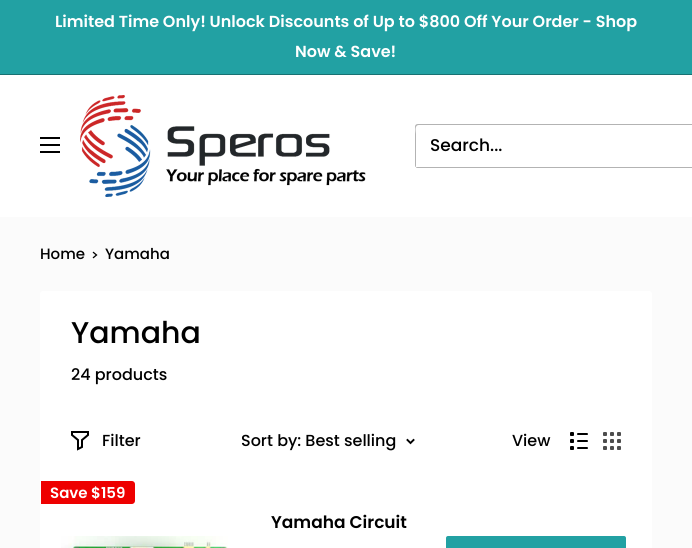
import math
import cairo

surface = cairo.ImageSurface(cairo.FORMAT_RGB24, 692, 548)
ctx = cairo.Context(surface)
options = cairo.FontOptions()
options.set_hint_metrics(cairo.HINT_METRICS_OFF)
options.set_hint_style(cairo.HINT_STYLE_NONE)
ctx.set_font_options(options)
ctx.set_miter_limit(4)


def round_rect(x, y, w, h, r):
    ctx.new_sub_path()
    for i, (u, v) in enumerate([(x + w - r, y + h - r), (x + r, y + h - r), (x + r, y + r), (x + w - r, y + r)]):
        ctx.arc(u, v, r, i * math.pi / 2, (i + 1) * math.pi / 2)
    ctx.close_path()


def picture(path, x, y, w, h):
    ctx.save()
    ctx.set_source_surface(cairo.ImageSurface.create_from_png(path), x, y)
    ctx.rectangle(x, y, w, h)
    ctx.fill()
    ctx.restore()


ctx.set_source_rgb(0.984, 0.984, 0.984)
ctx.paint()
ctx.set_source_rgb(0.133, 0.631, 0.639)
ctx.rectangle(0, 0, 692, 74)
ctx.fill()
ctx.set_source_rgb(0.094, 0.443, 0.447)
ctx.rectangle(0, 74, 692, 1)
ctx.fill()
ctx.select_font_face("Poppins SemiBold")
ctx.set_font_size(16)
ctx.set_source_rgb(1, 1, 1)
ctx.move_to(55, 27)
ctx.show_text("Limited Time Only! Unlock Discounts of Up to $800 Off Your Order - Shop")
ctx.move_to(295, 57)
ctx.show_text("Now & Save!")
ctx.rectangle(0, 75, 692, 142)
ctx.fill()
picture("img1.png", 40, 137, 20, 16)
picture("img2.png", 80, 95, 286, 102)
ctx.set_source_rgb(0.702, 0.702, 0.702)
ctx.new_path()
ctx.move_to(416, 167)
ctx.curve_to(416, 168, 417, 168, 418, 168)
ctx.line_to(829, 168)
ctx.curve_to(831, 168, 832, 167, 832, 165)
ctx.line_to(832, 127)
ctx.curve_to(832, 126, 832, 125, 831, 125)
ctx.line_to(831, 158)
ctx.curve_to(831, 160, 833, 167, 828, 167)
ctx.close_path()
ctx.fill()
ctx.new_path()
ctx.move_to(419, 125)
ctx.line_to(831, 125)
ctx.curve_to(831, 124, 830, 124, 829, 124)
ctx.line_to(418, 124)
ctx.curve_to(416, 124, 415, 125, 415, 127)
ctx.line_to(415, 165)
ctx.curve_to(415, 166, 415, 167, 416, 167)
ctx.line_to(416, 134)
ctx.curve_to(416, 132, 414, 125, 419, 125)
ctx.close_path()
ctx.fill()
ctx.select_font_face("Poppins Medium")
ctx.set_font_size(17)
ctx.set_source_rgb(0, 0, 0)
ctx.move_to(430, 151)
ctx.show_text("Search...")
ctx.set_font_size(15)
ctx.move_to(40, 259)
ctx.show_text("Home")
ctx.new_path()
ctx.move_to(93.5, 252.5)
ctx.line_to(96.5, 255)
ctx.line_to(93.5, 257.5)
ctx.set_line_width(1.3)
ctx.set_line_cap(cairo.LINE_CAP_SQUARE)
ctx.stroke()
ctx.move_to(105, 259)
ctx.show_text("Yamaha")
ctx.set_source_rgb(1, 1, 1)
round_rect(40, 291, 612, 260, 3)
ctx.fill()
ctx.set_font_size(30)
ctx.set_source_rgb(0, 0, 0)
ctx.move_to(71, 343)
ctx.show_text("Yamaha")
ctx.set_font_size(16)
ctx.move_to(71, 380)
ctx.show_text("24 products")
ctx.new_path()
ctx.move_to(88, 435)
ctx.line_to(82, 440)
ctx.line_to(82, 447)
ctx.line_to(78, 449)
ctx.line_to(78, 440)
ctx.line_to(72, 435)
ctx.line_to(72, 432)
ctx.line_to(88, 432)
ctx.close_path()
ctx.set_line_width(2)
ctx.stroke()
ctx.move_to(102, 446)
ctx.show_text("Filter")
ctx.move_to(241, 446)
ctx.show_text("Sort by: Best selling")
ctx.new_path()
ctx.move_to(413.5, 440)
ctx.line_to(410.5, 443)
ctx.line_to(407.5, 440)
ctx.set_line_width(1.9)
ctx.stroke()
ctx.move_to(512, 446)
ctx.show_text("View")
picture("img3.png", 570, 432, 18, 18)
picture("img4.png", 603, 432, 18, 18)
ctx.set_source_rgb(0.933, 0, 0)
ctx.new_path()
ctx.move_to(41, 481)
ctx.line_to(132, 481)
ctx.curve_to(133.5, 481, 135, 482.5, 135, 484)
ctx.line_to(135, 501)
ctx.curve_to(135, 502.5, 133.5, 504, 132, 504)
ctx.line_to(41, 504)
ctx.close_path()
ctx.fill()
ctx.select_font_face("Poppins SemiBold")
ctx.set_font_size(15)
ctx.set_source_rgb(1, 1, 1)
ctx.move_to(50, 498)
ctx.show_text("Save $159")
ctx.set_font_size(17)
ctx.set_source_rgb(0, 0, 0)
ctx.move_to(271, 528)
ctx.show_text("Yamaha Circuit")
ctx.set_source_rgb(0.133, 0.631, 0.639)
round_rect(446, 536, 180, 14, 2)
ctx.fill()
picture("img5.png", 61, 536, 167, 12)
surface.write_to_png("page.png")
